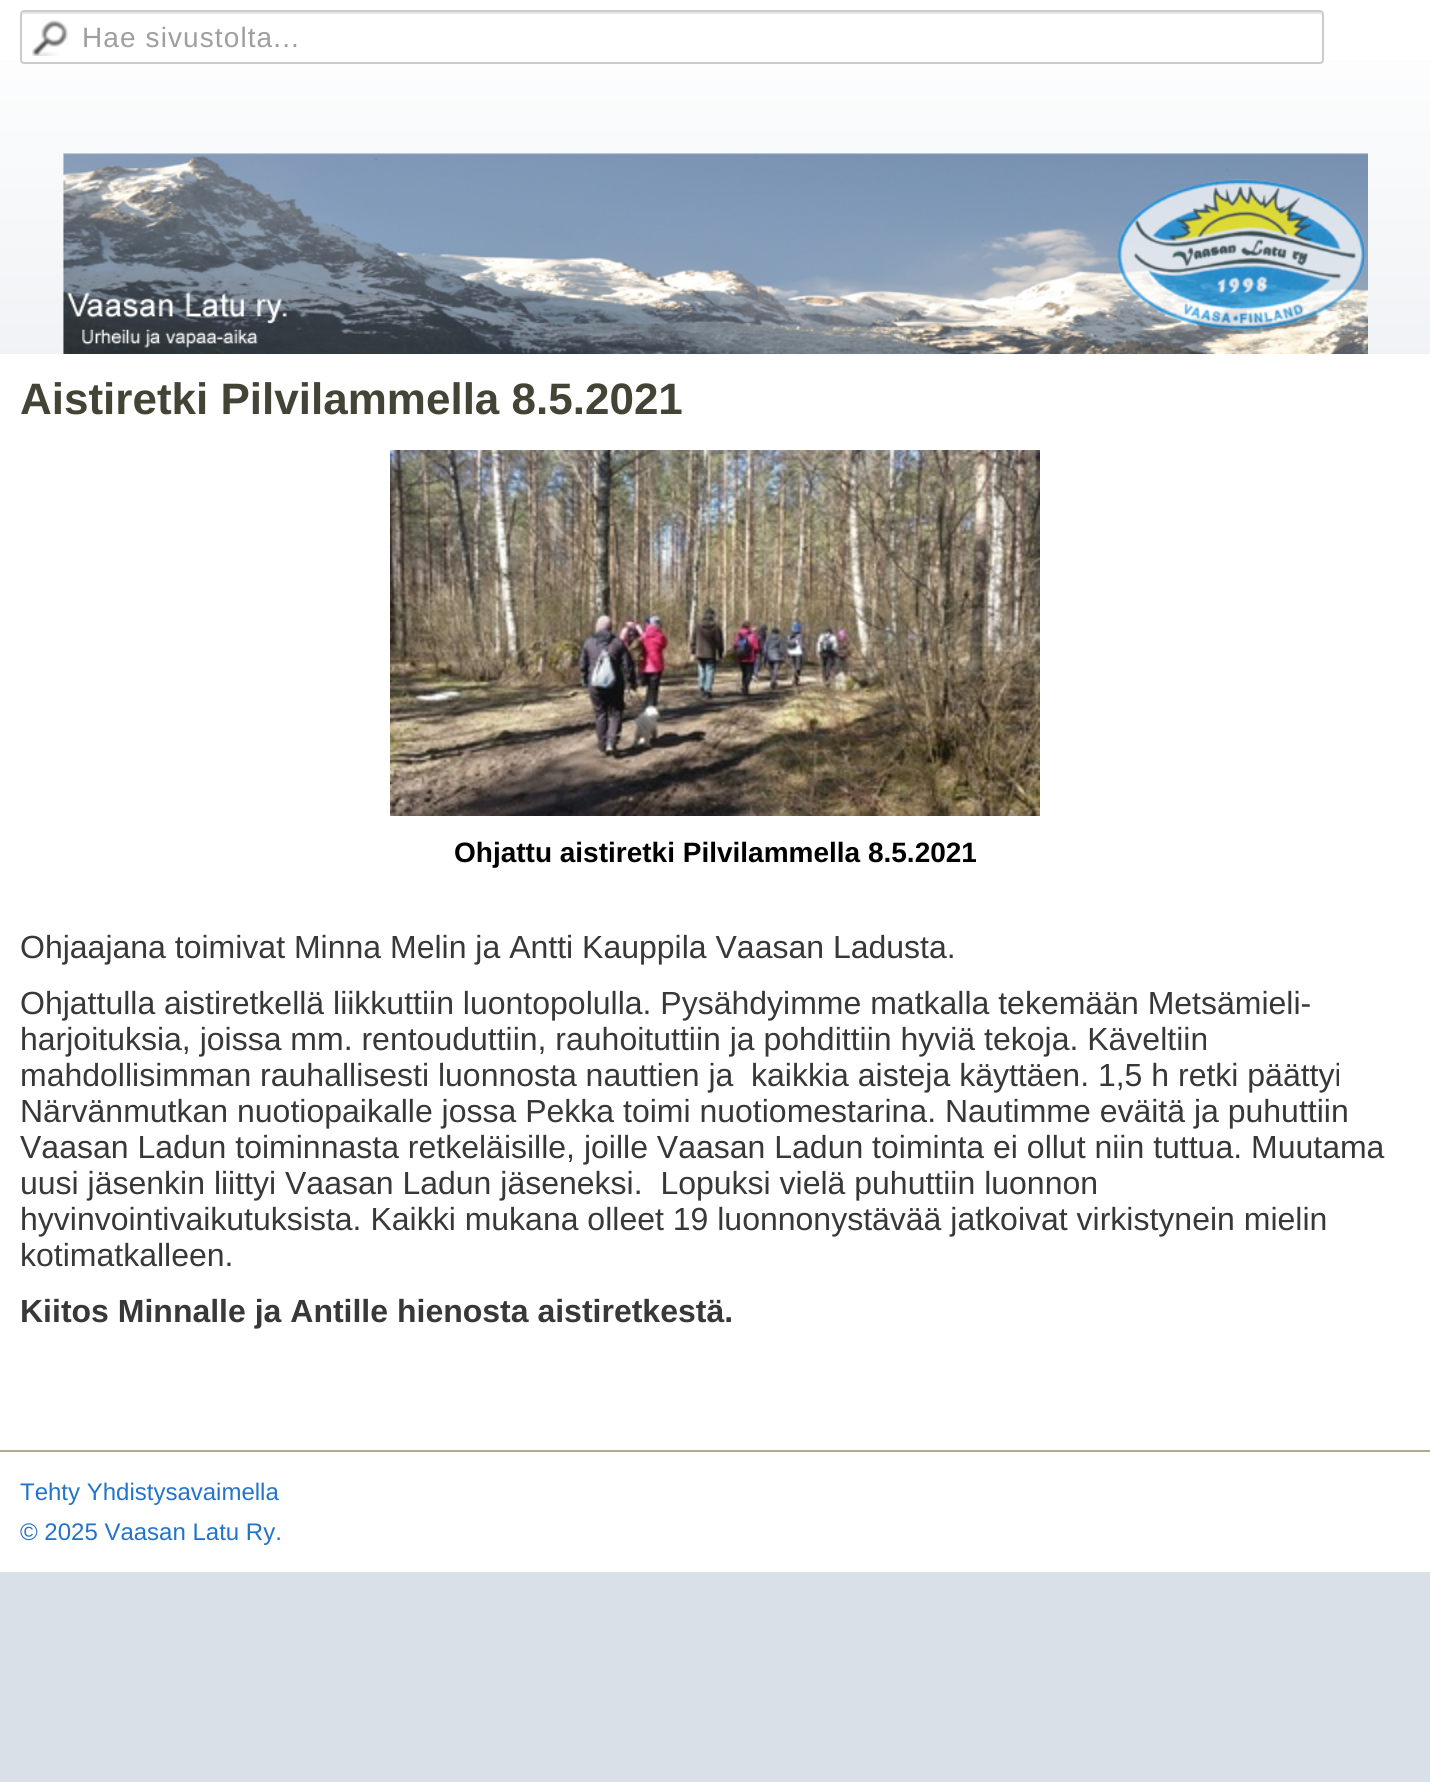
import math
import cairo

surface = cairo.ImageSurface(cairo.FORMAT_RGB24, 1430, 1782)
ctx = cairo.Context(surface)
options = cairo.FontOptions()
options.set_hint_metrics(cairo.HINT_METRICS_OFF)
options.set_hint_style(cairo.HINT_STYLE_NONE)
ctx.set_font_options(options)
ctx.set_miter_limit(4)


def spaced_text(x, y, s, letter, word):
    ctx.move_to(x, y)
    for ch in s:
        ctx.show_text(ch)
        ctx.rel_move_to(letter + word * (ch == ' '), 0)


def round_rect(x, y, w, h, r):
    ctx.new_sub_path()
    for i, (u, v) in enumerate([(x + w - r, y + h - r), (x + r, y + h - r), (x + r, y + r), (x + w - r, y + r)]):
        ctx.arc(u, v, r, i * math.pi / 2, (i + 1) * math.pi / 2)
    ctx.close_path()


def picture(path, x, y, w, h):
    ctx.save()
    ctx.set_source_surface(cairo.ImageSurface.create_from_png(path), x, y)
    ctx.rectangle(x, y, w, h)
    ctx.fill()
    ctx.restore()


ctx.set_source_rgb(1, 1, 1)
ctx.paint()
gradient = cairo.LinearGradient(715, 0, 715, 1782)
gradient.add_color_stop_rgba(0, 1, 1, 1, 1)
gradient.add_color_stop_rgba(0.51, 0.851, 0.878, 0.906, 1)
gradient.add_color_stop_rgba(1, 0.851, 0.878, 0.906, 1)
ctx.set_source(gradient)
ctx.rectangle(0, 60, 1430, 1722)
ctx.fill()
ctx.set_source_rgb(1, 1, 1)
round_rect(20, 10, 1304, 54, 4)
ctx.fill()
picture("img1.png", 32, 20, 36, 36)
ctx.set_source_rgb(0.902, 0.902, 0.902)
ctx.new_path()
ctx.move_to(24, 14)
ctx.line_to(1320, 14)
ctx.curve_to(1321, 14, 1322, 15, 1322, 16)
ctx.curve_to(1322, 14, 1322, 12, 1320, 12)
ctx.line_to(24, 12)
ctx.curve_to(22, 12, 22, 14, 22, 16)
ctx.curve_to(22, 15, 23, 14, 24, 14)
ctx.close_path()
ctx.fill()
round_rect(21, 11, 1302, 52, 3)
ctx.set_source_rgb(0.8, 0.8, 0.8)
ctx.stroke()
ctx.select_font_face("Liberation Sans")
ctx.set_font_size(28)
ctx.set_source_rgb(0.624, 0.624, 0.624)
spaced_text(82, 47, "Hae sivustolta...", 1.1, 0)
picture("img2.png", 63, 153, 1305, 201)
ctx.set_source_rgb(1, 1, 1)
ctx.rectangle(0, 354, 1430, 1096)
ctx.fill()
ctx.select_font_face("Liberation Sans", cairo.FONT_SLANT_NORMAL, cairo.FONT_WEIGHT_BOLD)
ctx.set_font_size(44)
ctx.set_source_rgb(0.267, 0.267, 0.212)
ctx.move_to(20, 414)
ctx.show_text("Aistiretki Pilvilammella 8.5.2021")
picture("img3.png", 390, 450, 650, 366)
ctx.set_font_size(28)
ctx.set_source_rgb(0, 0, 0)
ctx.move_to(454, 862)
ctx.show_text("Ohjattu aistiretki Pilvilammella 8.5.2021")
ctx.select_font_face("Liberation Sans")
ctx.set_font_size(32)
ctx.set_source_rgb(0.22, 0.22, 0.22)
ctx.move_to(20, 958)
ctx.show_text("Ohjaajana toimivat Minna Melin ja Antti Kauppila Vaasan Ladusta.")
ctx.move_to(20, 1014)
ctx.show_text("Ohjattulla aistiretkellä liikkuttiin luontopolulla. Pysähdyimme matkalla tekemään Metsämieli-")
ctx.move_to(20, 1050)
ctx.show_text("harjoituksia, joissa mm. rentouduttiin, rauhoituttiin ja pohdittiin hyviä tekoja. Käveltiin")
ctx.move_to(20, 1086)
ctx.show_text("mahdollisimman rauhallisesti luonnosta nauttien ja  kaikkia aisteja käyttäen. 1,5 h retki päättyi")
ctx.move_to(20, 1122)
ctx.show_text("Närvänmutkan nuotiopaikalle jossa Pekka toimi nuotiomestarina. Nautimme eväitä ja puhuttiin")
ctx.move_to(20, 1158)
ctx.show_text("Vaasan Ladun toiminnasta retkeläisille, joille Vaasan Ladun toiminta ei ollut niin tuttua. Muutama")
ctx.move_to(20, 1194)
ctx.show_text("uusi jäsenkin liittyi Vaasan Ladun jäseneksi.  Lopuksi vielä puhuttiin luonnon")
ctx.move_to(20, 1230)
ctx.show_text("hyvinvointivaikutuksista. Kaikki mukana olleet 19 luonnonystävää jatkoivat virkistynein mielin")
ctx.move_to(20, 1266)
ctx.show_text("kotimatkalleen.")
ctx.select_font_face("Liberation Sans", cairo.FONT_SLANT_NORMAL, cairo.FONT_WEIGHT_BOLD)
ctx.move_to(20, 1322)
ctx.show_text("Kiitos Minnalle ja Antille hienosta aistiretkestä.")
ctx.set_source_rgb(1, 1, 1)
ctx.rectangle(0, 1452, 1430, 120)
ctx.fill()
ctx.set_source_rgb(0.69, 0.671, 0.553)
ctx.rectangle(0, 1450, 1430, 2)
ctx.fill()
ctx.select_font_face("Liberation Sans")
ctx.set_font_size(24)
ctx.set_source_rgb(0.141, 0.451, 0.796)
ctx.move_to(20, 1500)
ctx.show_text("Tehty Yhdistysavaimella")
ctx.move_to(20, 1540)
ctx.show_text("© 2025 Vaasan Latu Ry.")
surface.write_to_png("page.png")
